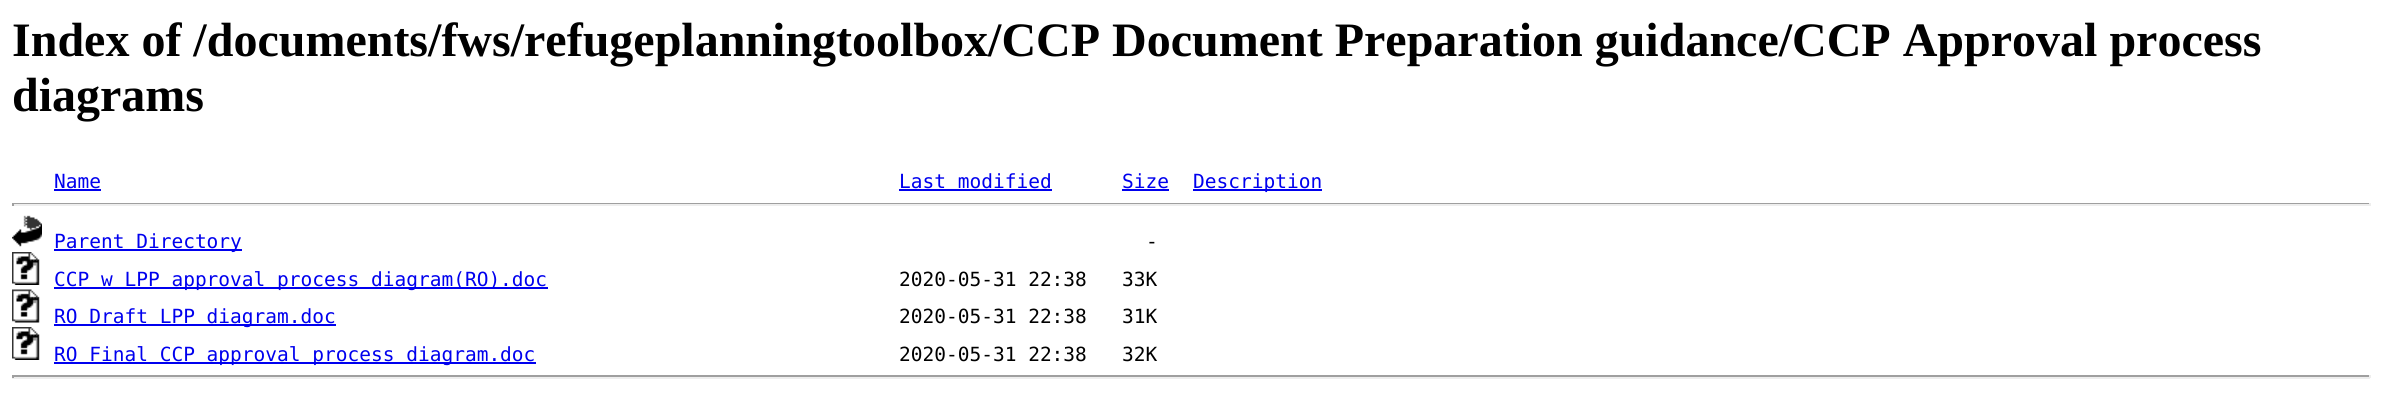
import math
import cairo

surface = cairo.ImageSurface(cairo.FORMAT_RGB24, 2382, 407)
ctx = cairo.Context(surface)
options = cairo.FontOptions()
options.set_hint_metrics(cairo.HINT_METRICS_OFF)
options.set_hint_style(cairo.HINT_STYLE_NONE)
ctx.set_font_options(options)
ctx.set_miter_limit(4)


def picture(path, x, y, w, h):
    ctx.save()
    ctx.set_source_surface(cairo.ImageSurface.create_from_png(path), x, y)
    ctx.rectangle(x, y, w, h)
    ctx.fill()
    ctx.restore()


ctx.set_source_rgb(1, 1, 1)
ctx.paint()
ctx.select_font_face("Liberation Serif", cairo.FONT_SLANT_NORMAL, cairo.FONT_WEIGHT_BOLD)
ctx.set_font_size(48)
ctx.set_source_rgb(0, 0, 0)
ctx.move_to(12, 56)
ctx.show_text("Index of /documents/fws/refugeplanningtoolbox/CCP Document Preparation guidance/CCP Approval process")
ctx.move_to(12, 111)
ctx.show_text("diagrams")
ctx.select_font_face("DejaVu Sans Mono")
ctx.set_font_size(19.5)
ctx.set_source_rgb(0, 0, 0.933)
ctx.move_to(54, 188)
ctx.show_text("Name")
ctx.rectangle(54, 189, 47, 2)
ctx.fill()
ctx.move_to(899, 188)
ctx.show_text("Last modified")
ctx.rectangle(899, 189, 153, 2)
ctx.fill()
ctx.move_to(1122, 188)
ctx.show_text("Size")
ctx.rectangle(1122, 189, 47, 2)
ctx.fill()
ctx.rectangle(1193, 189, 129, 2)
ctx.fill()
ctx.move_to(1193, 188)
ctx.show_text("Description")
ctx.set_source_rgb(0.624, 0.624, 0.624)
ctx.rectangle(12, 203, 2358, 1)
ctx.fill()
ctx.set_source_rgb(0.933, 0.933, 0.933)
ctx.rectangle(2369, 203, 2, 3)
ctx.fill()
ctx.rectangle(12, 204, 2358, 2)
ctx.fill()
ctx.set_source_rgb(0.624, 0.624, 0.624)
ctx.rectangle(12, 203, 2, 3)
ctx.fill()
picture("img1.png", 12, 215, 30, 32)
ctx.set_source_rgb(0, 0, 0.933)
ctx.rectangle(54, 249, 188, 2)
ctx.fill()
ctx.move_to(54, 248)
ctx.show_text("Parent Directory")
ctx.set_source_rgb(0, 0, 0)
ctx.move_to(1146, 248)
ctx.show_text("-")
picture("img2.png", 12, 252, 28, 33)
ctx.set_source_rgb(0, 0, 0.933)
ctx.rectangle(54, 287, 494, 2)
ctx.fill()
ctx.move_to(54, 286)
ctx.show_text("CCP w LPP approval process diagram(RO).doc")
ctx.set_source_rgb(0, 0, 0)
ctx.move_to(899, 286)
ctx.show_text("2020-05-31 22:38   33K")
picture("img3.png", 12, 289, 28, 34)
ctx.set_source_rgb(0, 0, 0.933)
ctx.rectangle(54, 324, 282, 2)
ctx.fill()
ctx.move_to(54, 323)
ctx.show_text("RO Draft LPP diagram.doc")
ctx.set_source_rgb(0, 0, 0)
ctx.move_to(899, 323)
ctx.show_text("2020-05-31 22:38   31K")
picture("img2.png", 12, 327, 28, 33)
ctx.set_source_rgb(0, 0, 0.933)
ctx.rectangle(54, 362, 482, 2)
ctx.fill()
ctx.move_to(54, 361)
ctx.show_text("RO Final CCP approval process diagram.doc")
ctx.set_source_rgb(0, 0, 0)
ctx.move_to(899, 361)
ctx.show_text("2020-05-31 22:38   32K")
ctx.set_source_rgb(0.624, 0.624, 0.624)
ctx.rectangle(12, 375, 2358, 2)
ctx.fill()
ctx.set_source_rgb(0.933, 0.933, 0.933)
ctx.rectangle(2369, 375, 2, 3)
ctx.fill()
ctx.rectangle(12, 377, 2358, 2)
ctx.fill()
ctx.set_source_rgb(0.624, 0.624, 0.624)
ctx.rectangle(12, 375, 2, 3)
ctx.fill()
surface.write_to_png("page.png")
